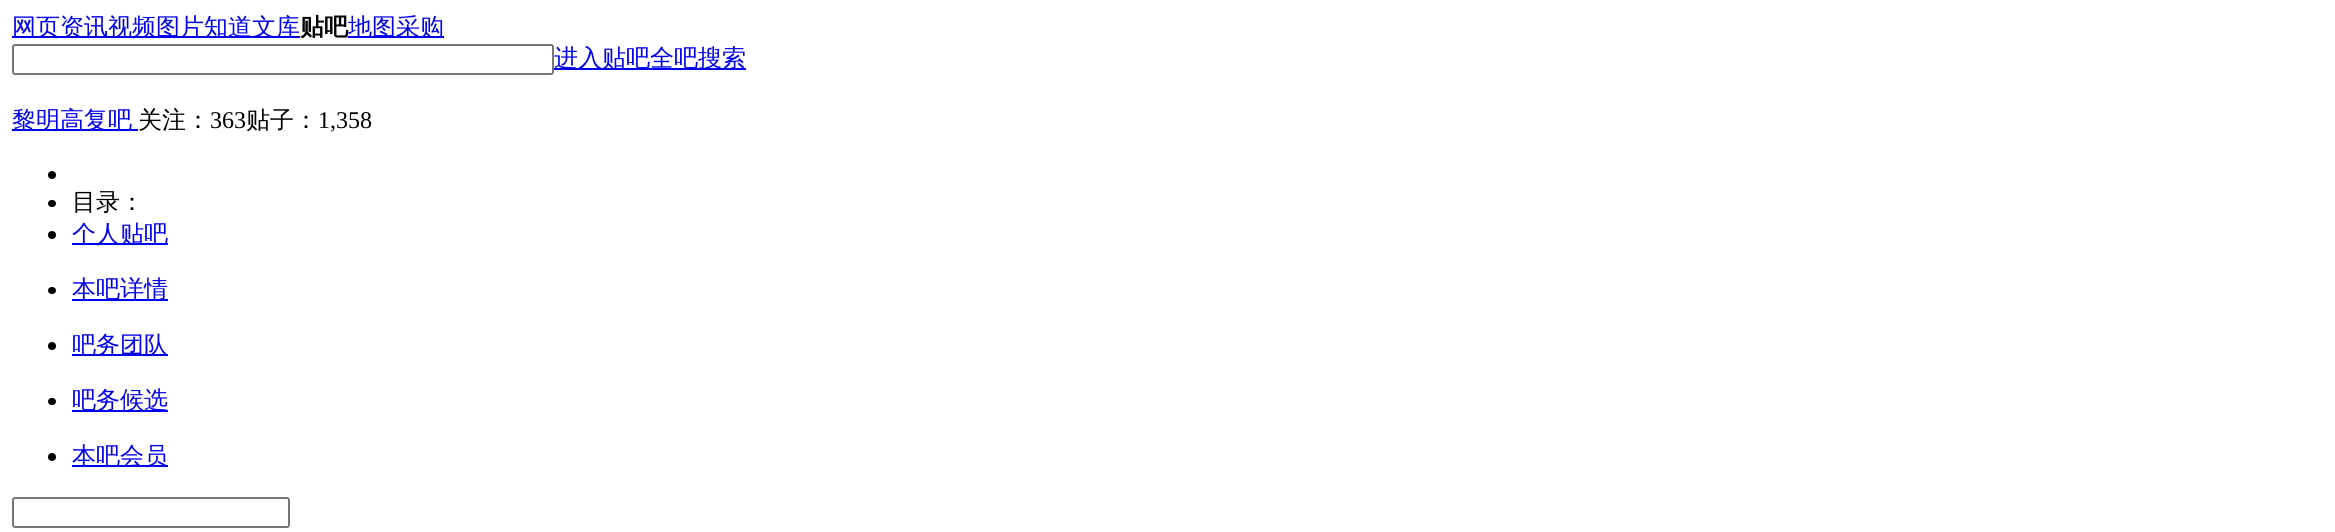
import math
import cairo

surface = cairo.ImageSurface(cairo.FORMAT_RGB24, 2335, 532)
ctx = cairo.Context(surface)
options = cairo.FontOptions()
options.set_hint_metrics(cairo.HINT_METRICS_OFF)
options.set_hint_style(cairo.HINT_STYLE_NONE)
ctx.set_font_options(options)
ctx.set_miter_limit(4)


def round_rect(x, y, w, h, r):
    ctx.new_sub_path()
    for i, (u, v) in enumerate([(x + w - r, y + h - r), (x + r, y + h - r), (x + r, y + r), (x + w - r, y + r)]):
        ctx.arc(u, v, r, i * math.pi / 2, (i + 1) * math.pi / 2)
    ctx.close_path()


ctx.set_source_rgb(1, 1, 1)
ctx.paint()
ctx.set_source_rgb(0, 0, 0.933)
ctx.rectangle(12, 36, 288, 2)
ctx.fill()
ctx.select_font_face("WenQuanYi Zen Hei Medium")
ctx.set_font_size(24)
ctx.move_to(12, 35)
ctx.show_text("网页资讯视频图片知道文库")
ctx.select_font_face("WenQuanYi Zen Hei", cairo.FONT_SLANT_NORMAL, cairo.FONT_WEIGHT_BOLD)
ctx.set_source_rgb(0, 0, 0)
ctx.move_to(300, 35)
ctx.show_text("贴吧")
ctx.set_source_rgb(0, 0, 0.933)
ctx.rectangle(348, 36, 96, 2)
ctx.fill()
ctx.select_font_face("WenQuanYi Zen Hei Medium")
ctx.move_to(348, 35)
ctx.show_text("地图采购")
round_rect(13, 45, 540, 29, 2)
ctx.set_source_rgb(0.463, 0.463, 0.463)
ctx.stroke()
ctx.set_source_rgb(0, 0, 0.933)
ctx.rectangle(554, 68, 192, 2)
ctx.fill()
ctx.move_to(554, 66)
ctx.show_text("进入贴吧全吧搜索")
ctx.rectangle(12, 129, 126, 2)
ctx.fill()
ctx.move_to(12, 128)
ctx.show_text("黎明高复吧")
ctx.set_source_rgb(0, 0, 0)
ctx.move_to(138, 128)
ctx.show_text("关注：")
ctx.select_font_face("Liberation Serif")
ctx.move_to(210, 128)
ctx.show_text("363")
ctx.select_font_face("WenQuanYi Zen Hei Medium")
ctx.move_to(246, 128)
ctx.show_text("贴子：")
ctx.select_font_face("Liberation Serif")
ctx.move_to(318, 128)
ctx.show_text("1,358")
ctx.new_path()
ctx.arc(52, 175, 4, 0, 2 * math.pi)
ctx.fill()
round_rect(48, 200, 8, 7, 3.5)
ctx.fill()
ctx.select_font_face("WenQuanYi Zen Hei Medium")
ctx.move_to(72, 210)
ctx.show_text("目录：")
ctx.new_path()
ctx.arc(52, 235, 4, 0, 2 * math.pi)
ctx.fill()
ctx.set_source_rgb(0, 0, 0.933)
ctx.rectangle(72, 243, 96, 2)
ctx.fill()
ctx.move_to(72, 242)
ctx.show_text("个人贴吧")
ctx.set_source_rgb(0, 0, 0)
round_rect(48, 287, 8, 7, 3.5)
ctx.fill()
ctx.set_source_rgb(0, 0, 0.933)
ctx.rectangle(72, 299, 96, 2)
ctx.fill()
ctx.move_to(72, 297)
ctx.show_text("本吧详情")
ctx.set_source_rgb(0, 0, 0)
ctx.new_path()
ctx.arc(52, 346, 4, 0, 2 * math.pi)
ctx.fill()
ctx.set_source_rgb(0, 0, 0.933)
ctx.rectangle(72, 354, 96, 2)
ctx.fill()
ctx.move_to(72, 353)
ctx.show_text("吧务团队")
ctx.set_source_rgb(0, 0, 0)
round_rect(48, 398, 8, 7, 3.5)
ctx.fill()
ctx.set_source_rgb(0, 0, 0.933)
ctx.rectangle(72, 410, 96, 2)
ctx.fill()
ctx.move_to(72, 408)
ctx.show_text("吧务候选")
ctx.set_source_rgb(0, 0, 0)
ctx.new_path()
ctx.arc(52, 457, 4, 0, 2 * math.pi)
ctx.fill()
ctx.set_source_rgb(0, 0, 0.933)
ctx.rectangle(72, 465, 96, 2)
ctx.fill()
ctx.move_to(72, 464)
ctx.show_text("本吧会员")
round_rect(13, 498, 276, 29, 2)
ctx.set_source_rgb(0.463, 0.463, 0.463)
ctx.stroke()
surface.write_to_png("page.png")
